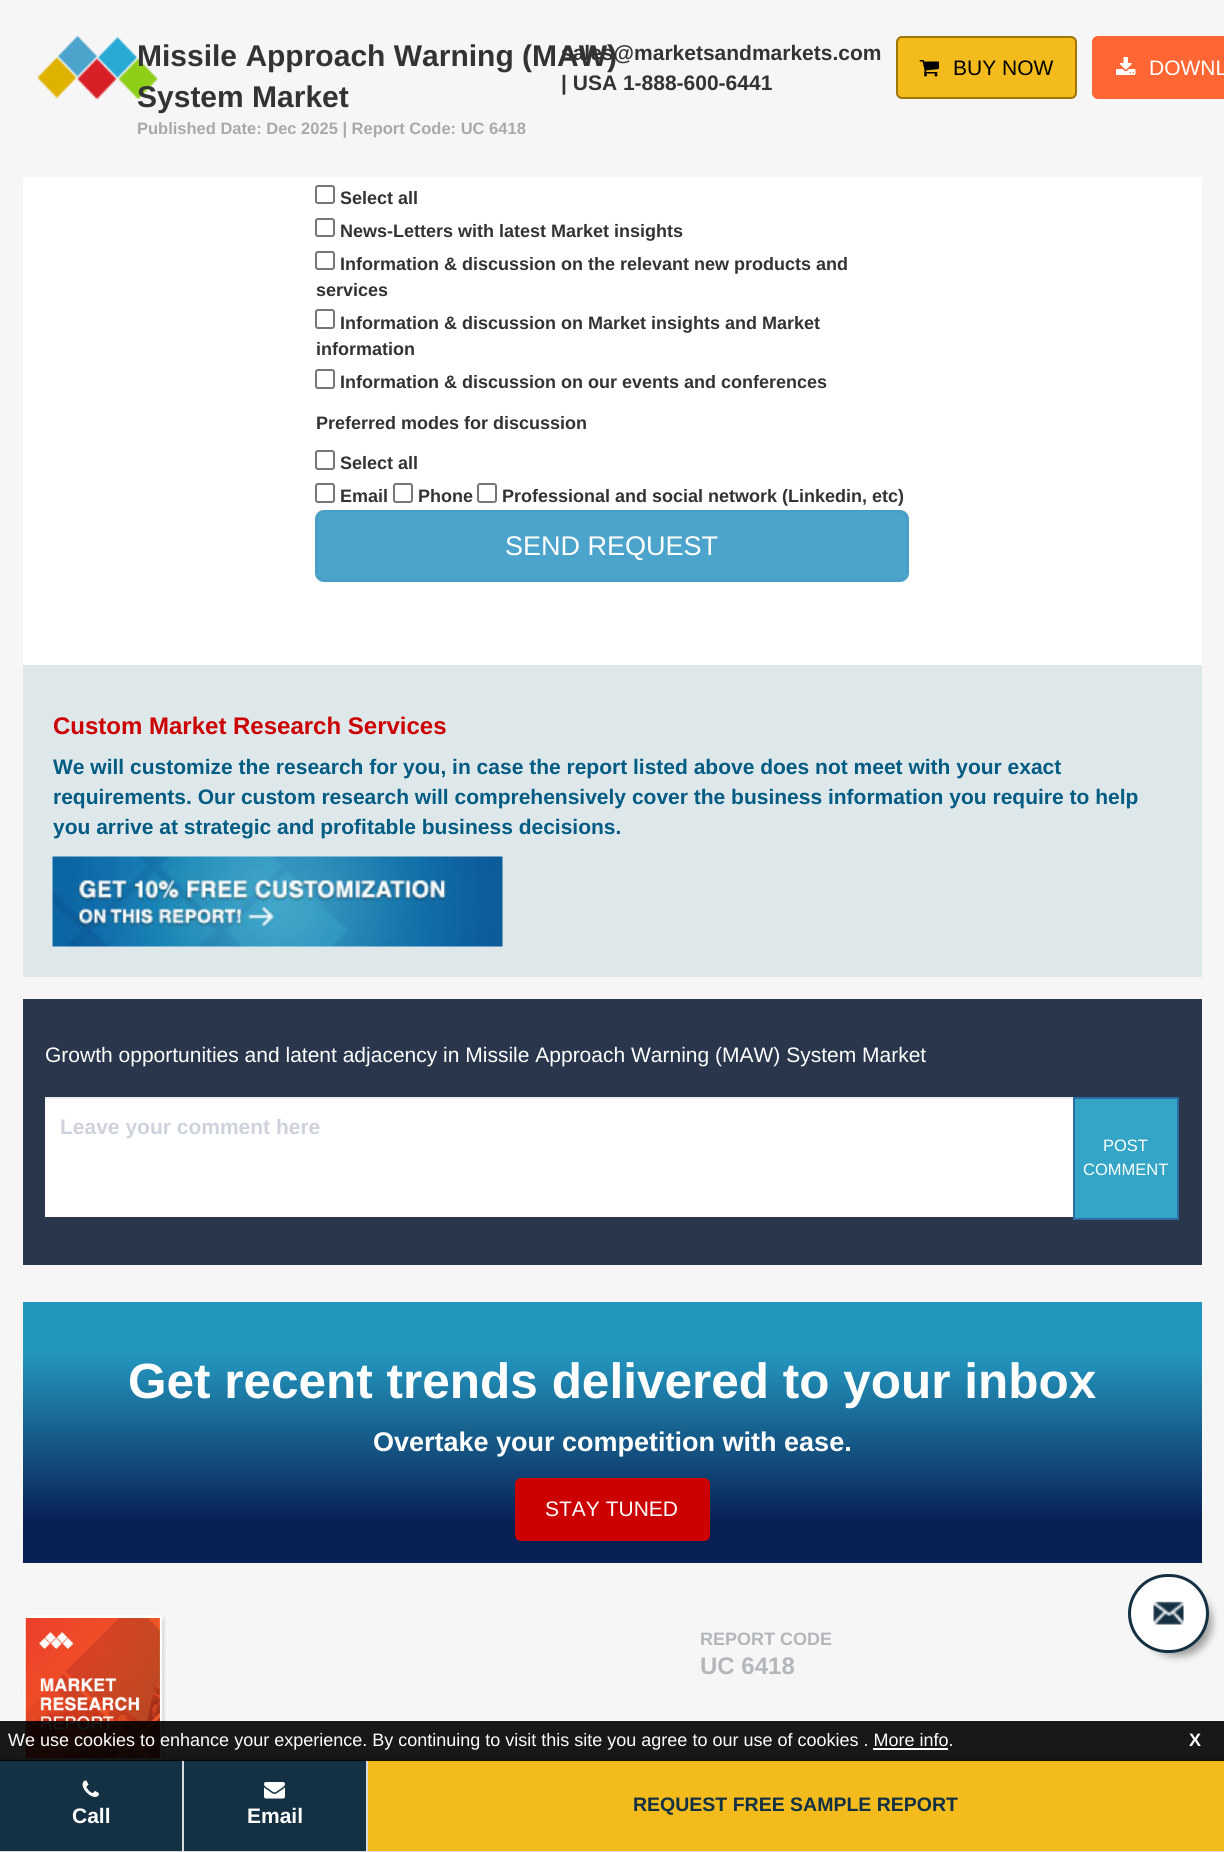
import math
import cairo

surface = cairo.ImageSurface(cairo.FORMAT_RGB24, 1224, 1852)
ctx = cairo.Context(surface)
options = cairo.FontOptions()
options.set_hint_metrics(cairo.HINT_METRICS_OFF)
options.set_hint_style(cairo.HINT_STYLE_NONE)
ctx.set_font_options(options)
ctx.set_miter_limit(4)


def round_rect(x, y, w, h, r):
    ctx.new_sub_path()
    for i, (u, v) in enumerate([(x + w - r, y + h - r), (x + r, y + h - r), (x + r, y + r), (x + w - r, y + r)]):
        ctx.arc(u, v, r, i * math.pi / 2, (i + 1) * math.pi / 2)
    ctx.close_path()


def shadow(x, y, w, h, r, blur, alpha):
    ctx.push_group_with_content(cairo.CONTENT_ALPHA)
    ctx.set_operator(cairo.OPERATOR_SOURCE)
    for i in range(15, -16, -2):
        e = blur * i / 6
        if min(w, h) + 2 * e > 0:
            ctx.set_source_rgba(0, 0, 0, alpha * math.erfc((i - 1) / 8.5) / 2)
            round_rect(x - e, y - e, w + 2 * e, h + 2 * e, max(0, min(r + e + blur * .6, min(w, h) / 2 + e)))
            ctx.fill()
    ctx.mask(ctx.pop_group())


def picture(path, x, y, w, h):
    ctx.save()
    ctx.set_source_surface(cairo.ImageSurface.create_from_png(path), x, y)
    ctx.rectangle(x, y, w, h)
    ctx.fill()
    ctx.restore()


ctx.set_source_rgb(0.961, 0.961, 0.961)
ctx.paint()
picture("img1.png", 37, 36, 121, 63)
ctx.select_font_face("Liberation Sans", cairo.FONT_SLANT_NORMAL, cairo.FONT_WEIGHT_BOLD)
ctx.set_font_size(30)
ctx.set_source_rgb(0.2, 0.2, 0.2)
ctx.move_to(137, 66)
ctx.show_text("Missile Approach Warning (MAW)")
ctx.move_to(137, 107)
ctx.show_text("System Market")
ctx.set_font_size(16.5)
ctx.set_source_rgb(0.663, 0.663, 0.663)
ctx.move_to(137, 134)
ctx.show_text("Published Date: Dec 2025 | Report Code: UC 6418")
ctx.set_font_size(21)
ctx.set_source_rgb(0.2, 0.2, 0.2)
ctx.move_to(561, 60)
ctx.show_text("sales@marketsandmarkets.com")
ctx.move_to(561, 90)
ctx.show_text("| USA 1-888-600-6441")
ctx.set_source_rgb(0.953, 0.733, 0.11)
round_rect(897, 37, 179, 61, 5)
ctx.fill_preserve()
ctx.set_source_rgb(0.62, 0.463, 0.024)
ctx.stroke()
picture("img2.png", 919, 60, 20, 17)
ctx.select_font_face("Liberation Sans")
ctx.set_source_rgb(0, 0, 0)
ctx.move_to(953, 75)
ctx.show_text("BUY NOW")
ctx.set_source_rgb(1, 0.4, 0.2)
round_rect(1093, 37, 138, 61, 5)
ctx.fill_preserve()
ctx.stroke()
picture("img3.png", 1116, 57, 20, 18)
ctx.set_source_rgb(1, 1, 1)
ctx.move_to(1149, 75)
ctx.show_text("DOWNL")
ctx.set_source_rgb(0, 0, 0)
shadow(1143, 1589, 69, 67, 33.5, 4, 0.36)
ctx.set_source_rgb(1, 1, 1)
round_rect(1129.5, 1575.5, 78, 76, 38)
ctx.fill_preserve()
ctx.set_source_rgb(0.082, 0.188, 0.263)
ctx.set_line_width(3)
ctx.stroke()
picture("img4.png", 1153, 1601, 31, 24)
ctx.rectangle(0, 1760, 366, 91)
ctx.fill()
ctx.set_source_rgb(0.839, 0.851, 0.867)
ctx.rectangle(0, 1758, 1224, 2)
ctx.fill()
ctx.rectangle(0, 1851, 1224, 1)
ctx.fill()
ctx.rectangle(182, 1760, 2, 91)
ctx.fill()
picture("img5.png", 82, 1780, 17, 17)
ctx.select_font_face("Liberation Sans", cairo.FONT_SLANT_NORMAL, cairo.FONT_WEIGHT_BOLD)
ctx.set_source_rgb(1, 1, 1)
ctx.move_to(72, 1823)
ctx.show_text("Call")
ctx.set_source_rgb(0.839, 0.851, 0.867)
ctx.rectangle(366, 1760, 2, 91)
ctx.fill()
picture("img6.png", 264, 1782, 21, 17)
ctx.set_source_rgb(1, 1, 1)
ctx.move_to(247, 1823)
ctx.show_text("Email")
ctx.set_source_rgb(0.953, 0.733, 0.11)
ctx.rectangle(368, 1760, 856, 91)
ctx.fill()
ctx.set_font_size(19.5)
ctx.set_source_rgb(0.082, 0.188, 0.263)
ctx.move_to(633, 1811)
ctx.show_text("REQUEST FREE SAMPLE REPORT")
ctx.set_source_rgb(1, 1, 1)
ctx.rectangle(23, 177, 1179, 488)
ctx.fill()
round_rect(316, 186, 18, 17, 2)
ctx.set_source_rgb(0.463, 0.463, 0.463)
ctx.set_line_width(2)
ctx.stroke()
ctx.set_font_size(18)
ctx.set_source_rgb(0.2, 0.2, 0.2)
ctx.move_to(340, 204)
ctx.show_text("Select all")
round_rect(316, 219, 18, 17, 2)
ctx.set_source_rgb(0.463, 0.463, 0.463)
ctx.stroke()
ctx.set_source_rgb(0.2, 0.2, 0.2)
ctx.move_to(340, 237)
ctx.show_text("News-Letters with latest Market insights")
round_rect(316, 252, 18, 17, 2)
ctx.set_source_rgb(0.463, 0.463, 0.463)
ctx.stroke()
ctx.set_source_rgb(0.2, 0.2, 0.2)
ctx.move_to(340, 270)
ctx.show_text("Information & discussion on the relevant new products and")
ctx.move_to(316, 296)
ctx.show_text("services")
round_rect(316, 310, 18, 18, 2)
ctx.set_source_rgb(0.463, 0.463, 0.463)
ctx.stroke()
ctx.set_source_rgb(0.2, 0.2, 0.2)
ctx.move_to(340, 329)
ctx.show_text("Information & discussion on Market insights and Market")
ctx.move_to(316, 355)
ctx.show_text("information")
round_rect(316, 370, 18, 18, 2)
ctx.set_source_rgb(0.463, 0.463, 0.463)
ctx.stroke()
ctx.set_source_rgb(0.2, 0.2, 0.2)
ctx.move_to(340, 388)
ctx.show_text("Information & discussion on our events and conferences")
ctx.move_to(316, 429)
ctx.show_text("Preferred modes for discussion")
round_rect(316, 451, 18, 18, 2)
ctx.set_source_rgb(0.463, 0.463, 0.463)
ctx.stroke()
ctx.set_source_rgb(0.2, 0.2, 0.2)
ctx.move_to(340, 469)
ctx.show_text("Select all")
round_rect(316, 484, 18, 18, 2)
ctx.set_source_rgb(0.463, 0.463, 0.463)
ctx.stroke()
ctx.set_source_rgb(0.2, 0.2, 0.2)
ctx.move_to(340, 502)
ctx.show_text("Email")
round_rect(394, 484, 18, 18, 2)
ctx.set_source_rgb(0.463, 0.463, 0.463)
ctx.stroke()
ctx.set_source_rgb(0.2, 0.2, 0.2)
ctx.move_to(418, 502)
ctx.show_text("Phone")
round_rect(478, 484, 18, 18, 2)
ctx.set_source_rgb(0.463, 0.463, 0.463)
ctx.stroke()
ctx.set_source_rgb(0.2, 0.2, 0.2)
ctx.move_to(502, 502)
ctx.show_text("Professional and social network (Linkedin, etc)")
ctx.set_source_rgb(0.298, 0.643, 0.8)
round_rect(316.5, 511.5, 591, 69, 7.5)
ctx.fill_preserve()
ctx.set_source_rgb(0.282, 0.627, 0.78)
ctx.set_line_width(3)
ctx.stroke()
ctx.select_font_face("Liberation Sans")
ctx.set_font_size(27)
ctx.set_source_rgb(1, 1, 1)
ctx.move_to(505, 555)
ctx.show_text("SEND REQUEST")
ctx.set_source_rgb(0.871, 0.91, 0.918)
ctx.rectangle(23, 665, 1179, 312)
ctx.fill()
ctx.select_font_face("Liberation Sans", cairo.FONT_SLANT_NORMAL, cairo.FONT_WEIGHT_BOLD)
ctx.set_font_size(24)
ctx.set_source_rgb(0.8, 0, 0)
ctx.move_to(53, 734)
ctx.show_text("Custom Market Research Services")
ctx.set_font_size(21)
ctx.set_source_rgb(0.008, 0.357, 0.514)
ctx.move_to(53, 774)
ctx.show_text("We will customize the research for you, in case the report listed above does not meet with your exact")
ctx.move_to(53, 804)
ctx.show_text("requirements. Our custom research will comprehensively cover the business information you require to help")
ctx.move_to(53, 834)
ctx.show_text("you arrive at strategic and profitable business decisions.")
picture("img7.png", 52, 856, 451, 91)
ctx.set_source_rgb(0.161, 0.212, 0.298)
ctx.rectangle(23, 999, 1179, 266)
ctx.fill()
ctx.select_font_face("Liberation Sans")
ctx.set_source_rgb(1, 1, 1)
ctx.move_to(45, 1062)
ctx.show_text("Growth opportunities and latent adjacency in Missile Approach Warning (MAW) System Market")
ctx.rectangle(45, 1099, 1028, 118)
ctx.fill()
ctx.set_source_rgb(0.925, 0.925, 0.925)
ctx.rectangle(45, 1097, 1028, 2)
ctx.fill()
ctx.select_font_face("Liberation Sans", cairo.FONT_SLANT_NORMAL, cairo.FONT_WEIGHT_BOLD)
ctx.set_source_rgb(0.808, 0.824, 0.859)
ctx.move_to(60, 1134)
ctx.show_text("Leave your comment here")
ctx.set_source_rgb(0.204, 0.647, 0.776)
ctx.rectangle(1074, 1098, 104, 121)
ctx.fill_preserve()
ctx.set_source_rgb(0.18, 0.427, 0.643)
ctx.set_line_width(2)
ctx.stroke()
ctx.select_font_face("Liberation Sans")
ctx.set_font_size(16.5)
ctx.set_source_rgb(1, 1, 1)
ctx.move_to(1103, 1151)
ctx.show_text("POST")
ctx.move_to(1083, 1175)
ctx.show_text("COMMENT")
gradient = cairo.LinearGradient(612, 1302, 612, 1563)
gradient.add_color_stop_rgba(0.2, 0.137, 0.588, 0.745, 1)
gradient.add_color_stop_rgba(0.85, 0.031, 0.122, 0.329, 1)
ctx.set_source(gradient)
ctx.rectangle(23, 1302, 1179, 261)
ctx.fill()
ctx.select_font_face("Liberation Sans", cairo.FONT_SLANT_NORMAL, cairo.FONT_WEIGHT_BOLD)
ctx.set_font_size(49.5)
ctx.set_source_rgb(1, 1, 1)
ctx.move_to(128, 1398)
ctx.show_text("Get recent trends delivered to your inbox")
ctx.set_font_size(27)
ctx.move_to(373, 1451)
ctx.show_text("Overtake your competition with ease.")
ctx.set_source_rgb(0.8, 0, 0)
round_rect(516, 1479, 193, 61, 5)
ctx.fill_preserve()
ctx.stroke()
ctx.select_font_face("Liberation Sans")
ctx.set_font_size(21)
ctx.set_source_rgb(1, 1, 1)
ctx.move_to(545, 1516)
ctx.show_text("STAY TUNED")
picture("img8.png", 22, 1615, 144, 143)
ctx.select_font_face("Liberation Sans", cairo.FONT_SLANT_NORMAL, cairo.FONT_WEIGHT_BOLD)
ctx.set_font_size(18)
ctx.set_source_rgb(0.702, 0.718, 0.733)
ctx.move_to(700, 1645)
ctx.show_text("REPORT CODE")
ctx.set_font_size(24)
ctx.move_to(700, 1674)
ctx.show_text("UC 6418")
ctx.set_source_rgba(0, 0, 0, 0.9)
ctx.rectangle(0, 1721, 1224, 40)
ctx.fill()
ctx.select_font_face("Liberation Sans")
ctx.set_font_size(18)
ctx.set_source_rgb(1, 1, 1)
ctx.move_to(8, 1746)
ctx.show_text("We use cookies to enhance your experience. By continuing to visit this site you agree to our use of cookies . More info.")
ctx.rectangle(873, 1748, 75, 2)
ctx.fill()
ctx.select_font_face("Liberation Sans", cairo.FONT_SLANT_NORMAL, cairo.FONT_WEIGHT_BOLD)
ctx.move_to(1189, 1746)
ctx.show_text("X")
surface.write_to_png("page.png")
